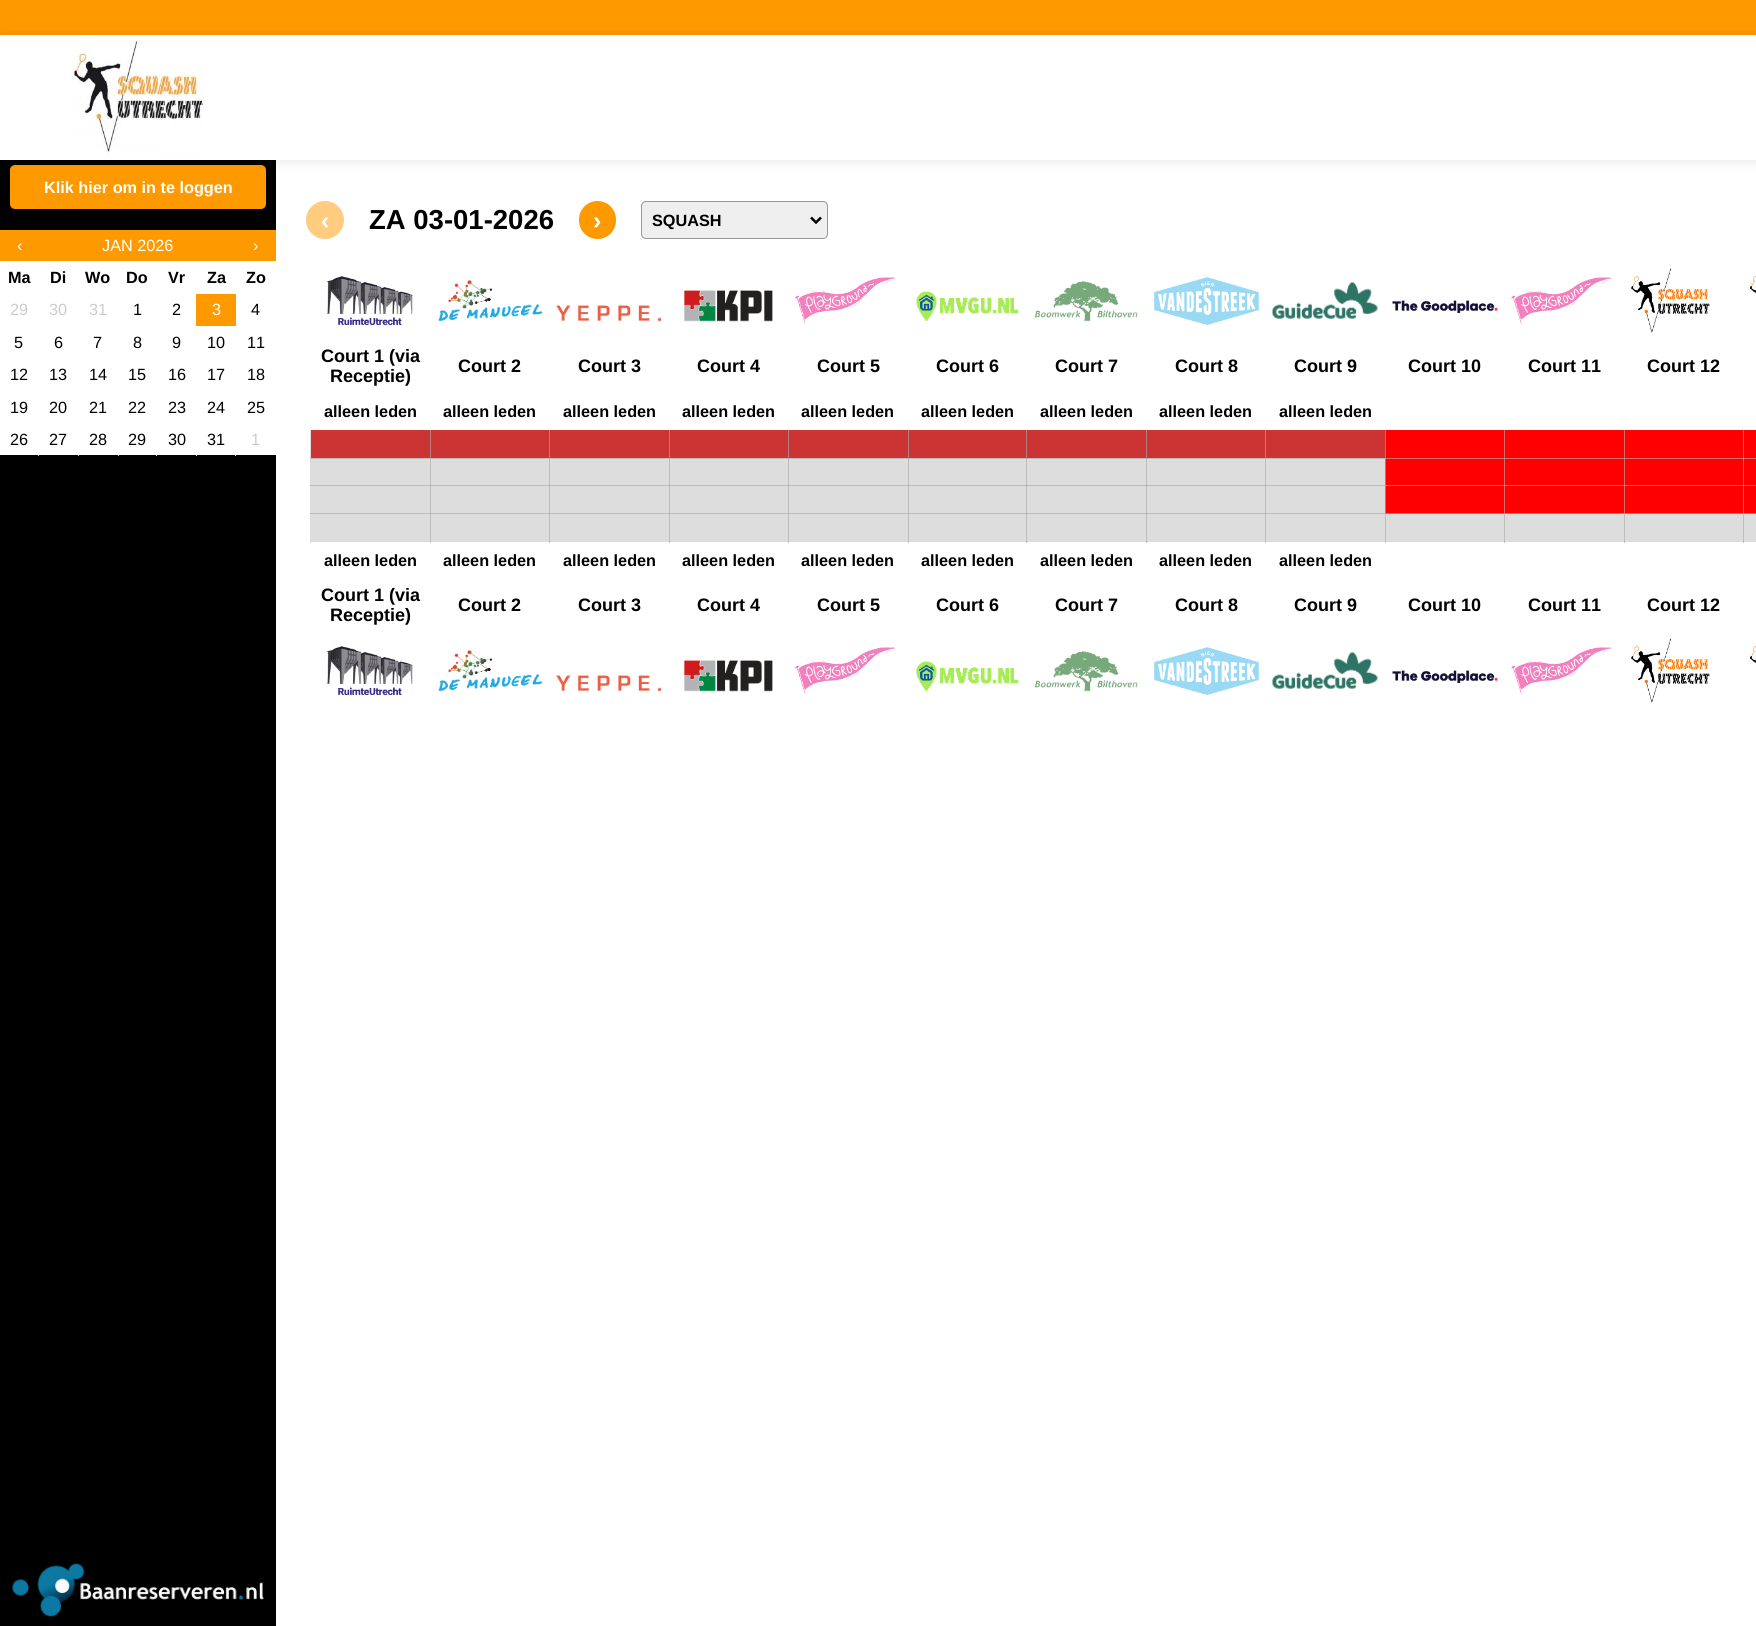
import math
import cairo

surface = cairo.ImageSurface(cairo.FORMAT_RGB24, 1756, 1626)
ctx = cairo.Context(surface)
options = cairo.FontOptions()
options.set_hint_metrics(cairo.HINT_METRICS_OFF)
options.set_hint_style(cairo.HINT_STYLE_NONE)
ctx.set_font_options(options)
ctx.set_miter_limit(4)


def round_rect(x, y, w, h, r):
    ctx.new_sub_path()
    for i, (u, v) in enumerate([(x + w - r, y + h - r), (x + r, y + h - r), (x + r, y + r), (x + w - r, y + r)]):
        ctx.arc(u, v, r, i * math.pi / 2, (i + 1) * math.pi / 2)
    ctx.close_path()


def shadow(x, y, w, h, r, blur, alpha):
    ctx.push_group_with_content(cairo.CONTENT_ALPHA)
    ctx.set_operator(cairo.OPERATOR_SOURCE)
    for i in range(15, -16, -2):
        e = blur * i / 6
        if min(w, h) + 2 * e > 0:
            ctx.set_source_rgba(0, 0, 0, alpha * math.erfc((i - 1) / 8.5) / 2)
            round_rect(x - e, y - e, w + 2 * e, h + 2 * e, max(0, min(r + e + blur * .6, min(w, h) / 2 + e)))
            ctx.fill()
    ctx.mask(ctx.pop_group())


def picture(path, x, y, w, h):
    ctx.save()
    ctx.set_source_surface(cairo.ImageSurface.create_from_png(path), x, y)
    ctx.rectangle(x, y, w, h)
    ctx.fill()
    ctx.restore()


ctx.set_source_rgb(1, 1, 1)
ctx.paint()
ctx.set_source_rgb(0.867, 0.867, 0.867)
ctx.rectangle(310, 429, 1, 114)
ctx.fill()
ctx.set_source_rgb(0.71, 0.71, 0.71)
ctx.rectangle(310, 458, 1, 1)
ctx.fill()
ctx.rectangle(310, 485, 1, 1)
ctx.fill()
ctx.set_source_rgb(0.867, 0.867, 0.867)
ctx.rectangle(310, 541, 1434, 1)
ctx.fill()
ctx.set_source_rgb(0.788, 0.788, 0.788)
ctx.rectangle(310, 541, 1, 1)
ctx.fill()
ctx.set_source_rgb(0.71, 0.71, 0.71)
ctx.rectangle(310, 513, 1, 1)
ctx.fill()
ctx.set_source_rgb(0.788, 0.788, 0.788)
ctx.rectangle(430, 542, 1, 1)
ctx.fill()
ctx.set_source_rgb(0.71, 0.71, 0.71)
ctx.rectangle(430, 541, 1, 1)
ctx.fill()
ctx.set_source_rgb(0.788, 0.788, 0.788)
ctx.rectangle(549, 542, 1, 1)
ctx.fill()
ctx.set_source_rgb(0.71, 0.71, 0.71)
ctx.rectangle(549, 541, 1, 1)
ctx.fill()
ctx.set_source_rgb(0.788, 0.788, 0.788)
ctx.rectangle(669, 542, 1, 1)
ctx.fill()
ctx.set_source_rgb(0.71, 0.71, 0.71)
ctx.rectangle(669, 541, 1, 1)
ctx.fill()
ctx.set_source_rgb(0.788, 0.788, 0.788)
ctx.rectangle(788, 542, 1, 1)
ctx.fill()
ctx.set_source_rgb(0.71, 0.71, 0.71)
ctx.rectangle(788, 541, 1, 1)
ctx.fill()
ctx.set_source_rgb(0.788, 0.788, 0.788)
ctx.rectangle(908, 542, 1, 1)
ctx.fill()
ctx.set_source_rgb(0.71, 0.71, 0.71)
ctx.rectangle(908, 541, 1, 1)
ctx.fill()
ctx.set_source_rgb(0.788, 0.788, 0.788)
ctx.rectangle(1026, 542, 1, 1)
ctx.fill()
ctx.rectangle(1026, 541, 2, 1)
ctx.fill()
ctx.set_source_rgb(0.71, 0.71, 0.71)
ctx.rectangle(1026, 541, 1, 1)
ctx.fill()
ctx.set_source_rgb(0.788, 0.788, 0.788)
ctx.rectangle(1146, 542, 1, 1)
ctx.fill()
ctx.rectangle(1146, 541, 2, 1)
ctx.fill()
ctx.set_source_rgb(0.71, 0.71, 0.71)
ctx.rectangle(1146, 541, 1, 1)
ctx.fill()
ctx.set_source_rgb(0.788, 0.788, 0.788)
ctx.rectangle(1265, 542, 1, 1)
ctx.fill()
ctx.set_source_rgb(0.71, 0.71, 0.71)
ctx.rectangle(1265, 541, 1, 1)
ctx.fill()
ctx.set_source_rgb(0.788, 0.788, 0.788)
ctx.rectangle(1385, 542, 1, 1)
ctx.fill()
ctx.set_source_rgb(0.71, 0.71, 0.71)
ctx.rectangle(1385, 541, 1, 1)
ctx.fill()
ctx.set_source_rgb(0.788, 0.788, 0.788)
ctx.rectangle(1504, 542, 1, 1)
ctx.fill()
ctx.set_source_rgb(0.71, 0.71, 0.71)
ctx.rectangle(1504, 541, 1, 1)
ctx.fill()
ctx.set_source_rgb(0.788, 0.788, 0.788)
ctx.rectangle(1624, 542, 1, 1)
ctx.fill()
ctx.set_source_rgb(0.71, 0.71, 0.71)
ctx.rectangle(1624, 541, 1, 1)
ctx.fill()
ctx.set_source_rgb(0.788, 0.788, 0.788)
ctx.rectangle(1743, 542, 1, 1)
ctx.fill()
ctx.set_source_rgb(1, 0.6, 0)
ctx.rectangle(0, 0, 1756, 35)
ctx.fill()
ctx.set_source_rgb(0, 0, 0)
ctx.rectangle(0, 160, 276, 1466)
ctx.fill()
ctx.set_source_rgb(1, 0.6, 0)
round_rect(10, 165, 256, 44, 5)
ctx.fill()
ctx.save()
ctx.set_fill_rule(cairo.FILL_RULE_EVEN_ODD)
ctx.new_path()
ctx.move_to(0, 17)
ctx.line_to(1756, 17)
ctx.line_to(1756, 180)
ctx.line_to(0, 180)
ctx.close_path()
ctx.move_to(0, 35)
ctx.line_to(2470, 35)
ctx.line_to(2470, 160)
ctx.line_to(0, 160)
ctx.close_path()
ctx.clip()
ctx.set_source_rgb(0, 0, 0)
shadow(1, 36, 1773, 125, 0, 6, 0.1)
ctx.restore()
picture("img1.png", 71, 40, 134, 115)
ctx.select_font_face("Liberation Sans", cairo.FONT_SLANT_NORMAL, cairo.FONT_WEIGHT_BOLD)
ctx.set_font_size(16.25)
ctx.set_source_rgb(1, 1, 1)
ctx.move_to(44, 193)
ctx.show_text("Klik hier om in te loggen")
ctx.rectangle(0, 424, 276, 31)
ctx.fill()
ctx.set_source_rgb(1, 0.6, 0)
ctx.rectangle(0, 230, 276, 31)
ctx.fill()
ctx.select_font_face("Liberation Sans")
ctx.set_source_rgb(1, 1, 1)
ctx.move_to(17, 251)
ctx.show_text("‹")
ctx.move_to(102, 251)
ctx.show_text("JAN 2026")
ctx.move_to(253, 251)
ctx.show_text("›")
ctx.rectangle(0, 261, 276, 33)
ctx.fill()
ctx.select_font_face("Liberation Sans", cairo.FONT_SLANT_NORMAL, cairo.FONT_WEIGHT_BOLD)
ctx.set_source_rgb(0, 0, 0)
ctx.move_to(8, 283)
ctx.show_text("Ma")
ctx.move_to(50, 283)
ctx.show_text("Di")
ctx.move_to(85, 283)
ctx.show_text("Wo")
ctx.move_to(126, 283)
ctx.show_text("Do")
ctx.move_to(168, 283)
ctx.show_text("Vr")
ctx.move_to(207, 283)
ctx.show_text("Za")
ctx.move_to(246, 283)
ctx.show_text("Zo")
ctx.set_source_rgb(1, 1, 1)
ctx.rectangle(0, 294, 196, 32)
ctx.fill()
ctx.select_font_face("Liberation Sans")
ctx.set_source_rgb(0.8, 0.8, 0.8)
ctx.move_to(10, 315)
ctx.show_text("29")
ctx.move_to(49, 315)
ctx.show_text("30")
ctx.move_to(89, 315)
ctx.show_text("31")
ctx.set_source_rgb(0, 0, 0)
ctx.move_to(133, 315)
ctx.show_text("1")
ctx.move_to(172, 315)
ctx.show_text("2")
ctx.set_source_rgb(1, 0.6, 0)
ctx.rectangle(196, 294, 40, 32)
ctx.fill()
ctx.set_source_rgb(1, 1, 1)
ctx.move_to(212, 315)
ctx.show_text("3")
ctx.rectangle(236, 294, 40, 32)
ctx.fill()
ctx.set_source_rgb(0, 0, 0)
ctx.move_to(251, 315)
ctx.show_text("4")
ctx.set_source_rgb(1, 1, 1)
ctx.rectangle(0, 326, 276, 33)
ctx.fill()
ctx.set_source_rgb(0, 0, 0)
ctx.move_to(14, 348)
ctx.show_text("5")
ctx.move_to(54, 348)
ctx.show_text("6")
ctx.move_to(93, 348)
ctx.show_text("7")
ctx.move_to(133, 348)
ctx.show_text("8")
ctx.move_to(172, 348)
ctx.show_text("9")
ctx.move_to(207, 348)
ctx.show_text("10")
ctx.move_to(247, 348)
ctx.show_text("11")
ctx.set_source_rgb(1, 1, 1)
ctx.rectangle(0, 359, 276, 32)
ctx.fill()
ctx.set_source_rgb(0, 0, 0)
ctx.move_to(10, 380)
ctx.show_text("12")
ctx.move_to(49, 380)
ctx.show_text("13")
ctx.move_to(89, 380)
ctx.show_text("14")
ctx.move_to(128, 380)
ctx.show_text("15")
ctx.move_to(168, 380)
ctx.show_text("16")
ctx.move_to(207, 380)
ctx.show_text("17")
ctx.move_to(247, 380)
ctx.show_text("18")
ctx.set_source_rgb(1, 1, 1)
ctx.rectangle(0, 391, 276, 33)
ctx.fill()
ctx.set_source_rgb(0, 0, 0)
ctx.move_to(10, 413)
ctx.show_text("19")
ctx.move_to(49, 413)
ctx.show_text("20")
ctx.move_to(89, 413)
ctx.show_text("21")
ctx.move_to(128, 413)
ctx.show_text("22")
ctx.move_to(168, 413)
ctx.show_text("23")
ctx.move_to(207, 413)
ctx.show_text("24")
ctx.move_to(247, 413)
ctx.show_text("25")
ctx.move_to(10, 445)
ctx.show_text("26")
ctx.set_source_rgb(0.867, 0.867, 0.867)
ctx.rectangle(38, 455, 1, 1)
ctx.fill()
ctx.set_source_rgb(0, 0, 0)
ctx.move_to(49, 445)
ctx.show_text("27")
ctx.set_source_rgb(0.867, 0.867, 0.867)
ctx.rectangle(78, 455, 1, 1)
ctx.fill()
ctx.set_source_rgb(0, 0, 0)
ctx.move_to(89, 445)
ctx.show_text("28")
ctx.set_source_rgb(0.867, 0.867, 0.867)
ctx.rectangle(118, 455, 1, 1)
ctx.fill()
ctx.set_source_rgb(0, 0, 0)
ctx.move_to(128, 445)
ctx.show_text("29")
ctx.set_source_rgb(0.867, 0.867, 0.867)
ctx.rectangle(156, 455, 1, 1)
ctx.fill()
ctx.set_source_rgb(0, 0, 0)
ctx.move_to(168, 445)
ctx.show_text("30")
ctx.set_source_rgb(0.867, 0.867, 0.867)
ctx.rectangle(196, 455, 1, 1)
ctx.fill()
ctx.set_source_rgb(0, 0, 0)
ctx.move_to(207, 445)
ctx.show_text("31")
ctx.set_source_rgb(0.867, 0.867, 0.867)
ctx.rectangle(235, 455, 1, 1)
ctx.fill()
ctx.set_source_rgb(0.8, 0.8, 0.8)
ctx.move_to(251, 445)
ctx.show_text("1")
ctx.set_source_rgb(1, 0.8, 0.502)
ctx.new_path()
ctx.arc(325, 220, 19, 0, 2 * math.pi)
ctx.fill()
ctx.select_font_face("Liberation Sans", cairo.FONT_SLANT_NORMAL, cairo.FONT_WEIGHT_BOLD)
ctx.set_font_size(25)
ctx.set_source_rgb(1, 1, 1)
ctx.move_to(321, 229)
ctx.show_text("‹")
ctx.set_font_size(27.5)
ctx.set_source_rgb(0, 0, 0)
ctx.move_to(369, 229)
ctx.show_text("ZA 03-01-2026")
ctx.set_source_rgb(1, 0.6, 0)
round_rect(579, 201, 37, 38, 18.5)
ctx.fill()
ctx.set_font_size(25)
ctx.set_source_rgb(1, 1, 1)
ctx.move_to(593, 229)
ctx.show_text("›")
ctx.set_source_rgb(0.937, 0.937, 0.937)
round_rect(641.5, 201.5, 186, 37, 4.5)
ctx.fill_preserve()
ctx.set_source_rgb(0.6, 0.6, 0.6)
ctx.set_line_width(1)
ctx.stroke()
ctx.new_path()
ctx.move_to(811, 217.5)
ctx.line_to(816, 222.5)
ctx.line_to(821, 217.5)
ctx.set_source_rgb(0, 0, 0)
ctx.set_line_width(2.5)
ctx.stroke()
ctx.set_font_size(16.25)
ctx.move_to(652, 226)
ctx.show_text("SQUASH")
picture("img2.png", 327, 276, 86, 49)
picture("img3.png", 438, 280, 105, 42)
picture("img4.png", 556, 305, 106, 17)
picture("img5.png", 684, 290, 89, 32)
picture("img6.png", 795, 277, 100, 47)
picture("img7.png", 916, 291, 103, 31)
picture("img8.png", 1034, 281, 104, 41)
picture("img9.png", 1154, 277, 105, 48)
picture("img10.png", 1272, 282, 106, 37)
picture("img11.png", 1392, 300, 106, 13)
picture("img12.png", 1511, 277, 101, 47)
picture("img13.png", 1631, 268, 79, 65)
picture("img14.png", 1750, 276, 6, 17)
ctx.set_font_size(18)
ctx.move_to(321, 362)
ctx.show_text("Court 1 (via")
ctx.move_to(330, 382)
ctx.show_text("Receptie)")
ctx.move_to(458, 372)
ctx.show_text("Court 2")
ctx.move_to(578, 372)
ctx.show_text("Court 3")
ctx.move_to(697, 372)
ctx.show_text("Court 4")
ctx.move_to(817, 372)
ctx.show_text("Court 5")
ctx.move_to(936, 372)
ctx.show_text("Court 6")
ctx.move_to(1055, 372)
ctx.show_text("Court 7")
ctx.move_to(1175, 372)
ctx.show_text("Court 8")
ctx.move_to(1294, 372)
ctx.show_text("Court 9")
ctx.move_to(1408, 372)
ctx.show_text("Court 10")
ctx.move_to(1528, 372)
ctx.show_text("Court 11")
ctx.move_to(1647, 372)
ctx.show_text("Court 12")
ctx.set_source_rgb(1, 1, 1)
ctx.rectangle(310, 429, 1, 1)
ctx.fill()
ctx.set_font_size(16.25)
ctx.set_source_rgb(0, 0, 0)
ctx.move_to(324, 417)
ctx.show_text("alleen leden")
ctx.move_to(443, 417)
ctx.show_text("alleen leden")
ctx.move_to(563, 417)
ctx.show_text("alleen leden")
ctx.move_to(682, 417)
ctx.show_text("alleen leden")
ctx.move_to(801, 417)
ctx.show_text("alleen leden")
ctx.move_to(921, 417)
ctx.show_text("alleen leden")
ctx.move_to(1040, 417)
ctx.show_text("alleen leden")
ctx.move_to(1159, 417)
ctx.show_text("alleen leden")
ctx.move_to(1279, 417)
ctx.show_text("alleen leden")
ctx.set_source_rgb(0.8, 0.2, 0.2)
ctx.rectangle(311, 430, 119, 28)
ctx.fill()
ctx.rectangle(431, 430, 118, 28)
ctx.fill()
ctx.set_source_rgb(0.714, 0.498, 0.498)
ctx.rectangle(430, 430, 1, 28)
ctx.fill()
ctx.rectangle(549, 430, 1, 28)
ctx.fill()
ctx.set_source_rgb(0.8, 0.2, 0.2)
ctx.rectangle(550, 430, 119, 28)
ctx.fill()
ctx.rectangle(670, 430, 118, 28)
ctx.fill()
ctx.set_source_rgb(0.714, 0.498, 0.498)
ctx.rectangle(669, 430, 1, 28)
ctx.fill()
ctx.rectangle(788, 430, 1, 28)
ctx.fill()
ctx.set_source_rgb(0.8, 0.2, 0.2)
ctx.rectangle(789, 430, 119, 28)
ctx.fill()
ctx.rectangle(909, 430, 237, 28)
ctx.fill()
ctx.set_source_rgb(0.714, 0.498, 0.498)
ctx.rectangle(908, 430, 1, 28)
ctx.fill()
ctx.rectangle(1026, 430, 1, 28)
ctx.fill()
ctx.set_source_rgb(0.8, 0.2, 0.2)
ctx.rectangle(1147, 430, 118, 28)
ctx.fill()
ctx.set_source_rgb(0.714, 0.498, 0.498)
ctx.rectangle(1146, 430, 1, 28)
ctx.fill()
ctx.rectangle(1265, 430, 1, 28)
ctx.fill()
ctx.set_source_rgb(0.8, 0.2, 0.2)
ctx.rectangle(1266, 430, 119, 28)
ctx.fill()
ctx.set_source_rgb(1, 0, 0)
ctx.rectangle(1386, 430, 118, 28)
ctx.fill()
ctx.set_source_rgb(0.788, 0.427, 0.427)
ctx.rectangle(1385, 430, 1, 84)
ctx.fill()
ctx.rectangle(1504, 430, 1, 28)
ctx.fill()
ctx.set_source_rgb(1, 0, 0)
ctx.rectangle(1505, 430, 119, 28)
ctx.fill()
ctx.rectangle(1625, 430, 118, 28)
ctx.fill()
ctx.set_source_rgb(0.788, 0.427, 0.427)
ctx.rectangle(1624, 430, 1, 84)
ctx.fill()
ctx.rectangle(1743, 430, 1, 28)
ctx.fill()
ctx.set_source_rgb(1, 0, 0)
ctx.rectangle(1744, 430, 12, 28)
ctx.fill()
ctx.set_source_rgb(0.867, 0.867, 0.867)
ctx.rectangle(311, 459, 119, 26)
ctx.fill()
ctx.set_source_rgb(0.741, 0.741, 0.741)
ctx.rectangle(311, 458, 119, 1)
ctx.fill()
ctx.rectangle(311, 485, 119, 1)
ctx.fill()
ctx.set_source_rgb(0.867, 0.867, 0.867)
ctx.rectangle(431, 459, 118, 26)
ctx.fill()
ctx.set_source_rgb(0.741, 0.741, 0.741)
ctx.rectangle(430, 458, 1, 83)
ctx.fill()
ctx.rectangle(430, 458, 239, 1)
ctx.fill()
ctx.set_source_rgb(0.671, 0.671, 0.671)
ctx.rectangle(430, 458, 1, 1)
ctx.fill()
ctx.set_source_rgb(0.741, 0.741, 0.741)
ctx.rectangle(549, 458, 1, 83)
ctx.fill()
ctx.set_source_rgb(0.671, 0.671, 0.671)
ctx.rectangle(549, 458, 1, 1)
ctx.fill()
ctx.set_source_rgb(0.741, 0.741, 0.741)
ctx.rectangle(430, 485, 239, 1)
ctx.fill()
ctx.set_source_rgb(0.671, 0.671, 0.671)
ctx.rectangle(430, 485, 1, 1)
ctx.fill()
ctx.rectangle(549, 485, 1, 1)
ctx.fill()
ctx.set_source_rgb(0.867, 0.867, 0.867)
ctx.rectangle(670, 459, 118, 26)
ctx.fill()
ctx.set_source_rgb(0.741, 0.741, 0.741)
ctx.rectangle(669, 458, 1, 83)
ctx.fill()
ctx.rectangle(669, 458, 239, 1)
ctx.fill()
ctx.set_source_rgb(0.671, 0.671, 0.671)
ctx.rectangle(669, 458, 1, 1)
ctx.fill()
ctx.set_source_rgb(0.741, 0.741, 0.741)
ctx.rectangle(788, 458, 1, 83)
ctx.fill()
ctx.set_source_rgb(0.671, 0.671, 0.671)
ctx.rectangle(788, 458, 1, 1)
ctx.fill()
ctx.set_source_rgb(0.741, 0.741, 0.741)
ctx.rectangle(669, 485, 239, 1)
ctx.fill()
ctx.set_source_rgb(0.671, 0.671, 0.671)
ctx.rectangle(669, 485, 1, 1)
ctx.fill()
ctx.rectangle(788, 485, 1, 1)
ctx.fill()
ctx.set_source_rgb(0.867, 0.867, 0.867)
ctx.rectangle(909, 459, 237, 26)
ctx.fill()
ctx.set_source_rgb(0.741, 0.741, 0.741)
ctx.rectangle(908, 458, 1, 83)
ctx.fill()
ctx.rectangle(908, 458, 238, 1)
ctx.fill()
ctx.set_source_rgb(0.671, 0.671, 0.671)
ctx.rectangle(908, 458, 1, 1)
ctx.fill()
ctx.set_source_rgb(0.741, 0.741, 0.741)
ctx.rectangle(1026, 458, 1, 28)
ctx.fill()
ctx.set_source_rgb(0.694, 0.694, 0.694)
ctx.rectangle(1026, 458, 2, 1)
ctx.fill()
ctx.set_source_rgb(0.671, 0.671, 0.671)
ctx.rectangle(1026, 458, 1, 1)
ctx.fill()
ctx.set_source_rgb(0.741, 0.741, 0.741)
ctx.rectangle(908, 485, 238, 1)
ctx.fill()
ctx.set_source_rgb(0.671, 0.671, 0.671)
ctx.rectangle(908, 485, 1, 1)
ctx.fill()
ctx.set_source_rgb(0.694, 0.694, 0.694)
ctx.rectangle(1026, 485, 2, 1)
ctx.fill()
ctx.set_source_rgb(0.671, 0.671, 0.671)
ctx.rectangle(1026, 485, 1, 1)
ctx.fill()
ctx.set_source_rgb(0.867, 0.867, 0.867)
ctx.rectangle(1147, 459, 118, 26)
ctx.fill()
ctx.set_source_rgb(0.741, 0.741, 0.741)
ctx.rectangle(1146, 458, 1, 83)
ctx.fill()
ctx.rectangle(1146, 458, 239, 1)
ctx.fill()
ctx.set_source_rgb(0.694, 0.694, 0.694)
ctx.rectangle(1146, 458, 2, 1)
ctx.fill()
ctx.set_source_rgb(0.671, 0.671, 0.671)
ctx.rectangle(1146, 458, 1, 1)
ctx.fill()
ctx.set_source_rgb(0.741, 0.741, 0.741)
ctx.rectangle(1265, 458, 1, 83)
ctx.fill()
ctx.set_source_rgb(0.671, 0.671, 0.671)
ctx.rectangle(1265, 458, 1, 1)
ctx.fill()
ctx.set_source_rgb(0.741, 0.741, 0.741)
ctx.rectangle(1146, 485, 239, 1)
ctx.fill()
ctx.set_source_rgb(0.694, 0.694, 0.694)
ctx.rectangle(1146, 485, 2, 1)
ctx.fill()
ctx.set_source_rgb(0.671, 0.671, 0.671)
ctx.rectangle(1146, 485, 1, 1)
ctx.fill()
ctx.rectangle(1265, 485, 1, 1)
ctx.fill()
ctx.set_source_rgb(1, 0, 0)
ctx.rectangle(1386, 459, 118, 26)
ctx.fill()
ctx.set_source_rgb(0.788, 0.427, 0.427)
ctx.rectangle(1385, 458, 359, 1)
ctx.fill()
ctx.set_source_rgb(0.671, 0.655, 0.655)
ctx.rectangle(1385, 458, 1, 1)
ctx.fill()
ctx.set_source_rgb(0.788, 0.427, 0.427)
ctx.rectangle(1504, 458, 1, 56)
ctx.fill()
ctx.set_source_rgb(0.671, 0.655, 0.655)
ctx.rectangle(1504, 458, 1, 1)
ctx.fill()
ctx.set_source_rgb(0.788, 0.427, 0.427)
ctx.rectangle(1385, 485, 239, 1)
ctx.fill()
ctx.set_source_rgb(0.671, 0.655, 0.655)
ctx.rectangle(1385, 485, 1, 1)
ctx.fill()
ctx.rectangle(1504, 485, 1, 1)
ctx.fill()
ctx.set_source_rgb(1, 0, 0)
ctx.rectangle(1625, 459, 118, 26)
ctx.fill()
ctx.set_source_rgb(0.671, 0.655, 0.655)
ctx.rectangle(1624, 458, 1, 1)
ctx.fill()
ctx.set_source_rgb(0.788, 0.427, 0.427)
ctx.rectangle(1743, 458, 1, 56)
ctx.fill()
ctx.rectangle(1624, 485, 132, 1)
ctx.fill()
ctx.set_source_rgb(0.671, 0.655, 0.655)
ctx.rectangle(1624, 485, 1, 1)
ctx.fill()
ctx.set_source_rgb(0.867, 0.867, 0.867)
ctx.rectangle(550, 459, 119, 26)
ctx.fill()
ctx.rectangle(789, 459, 119, 26)
ctx.fill()
ctx.rectangle(1266, 459, 119, 26)
ctx.fill()
ctx.set_source_rgb(1, 0, 0)
ctx.rectangle(1505, 459, 119, 26)
ctx.fill()
ctx.rectangle(1744, 459, 12, 26)
ctx.fill()
ctx.set_source_rgb(0.788, 0.427, 0.427)
ctx.rectangle(1743, 458, 13, 1)
ctx.fill()
ctx.set_source_rgb(0.671, 0.655, 0.655)
ctx.rectangle(1743, 458, 1, 1)
ctx.fill()
ctx.set_source_rgb(0.867, 0.867, 0.867)
ctx.rectangle(311, 486, 119, 27)
ctx.fill()
ctx.set_source_rgb(0.741, 0.741, 0.741)
ctx.rectangle(311, 513, 597, 1)
ctx.fill()
ctx.set_source_rgb(1, 0, 0)
ctx.rectangle(1744, 486, 12, 27)
ctx.fill()
ctx.set_source_rgb(0.671, 0.655, 0.655)
ctx.rectangle(1743, 485, 1, 1)
ctx.fill()
ctx.set_source_rgb(0.867, 0.867, 0.867)
ctx.rectangle(431, 486, 118, 27)
ctx.fill()
ctx.set_source_rgb(0.671, 0.671, 0.671)
ctx.rectangle(430, 513, 1, 1)
ctx.fill()
ctx.rectangle(549, 513, 1, 1)
ctx.fill()
ctx.set_source_rgb(0.867, 0.867, 0.867)
ctx.rectangle(550, 486, 119, 27)
ctx.fill()
ctx.rectangle(670, 486, 118, 27)
ctx.fill()
ctx.set_source_rgb(0.671, 0.671, 0.671)
ctx.rectangle(669, 513, 1, 1)
ctx.fill()
ctx.rectangle(788, 513, 1, 1)
ctx.fill()
ctx.set_source_rgb(0.867, 0.867, 0.867)
ctx.rectangle(789, 486, 119, 27)
ctx.fill()
ctx.rectangle(909, 486, 237, 27)
ctx.fill()
ctx.set_source_rgb(0.741, 0.741, 0.741)
ctx.rectangle(1026, 486, 1, 28)
ctx.fill()
ctx.rectangle(908, 513, 477, 1)
ctx.fill()
ctx.set_source_rgb(0.671, 0.671, 0.671)
ctx.rectangle(908, 513, 1, 1)
ctx.fill()
ctx.set_source_rgb(0.694, 0.694, 0.694)
ctx.rectangle(1026, 513, 2, 1)
ctx.fill()
ctx.set_source_rgb(0.671, 0.671, 0.671)
ctx.rectangle(1026, 513, 1, 1)
ctx.fill()
ctx.set_source_rgb(0.867, 0.867, 0.867)
ctx.rectangle(1147, 486, 118, 27)
ctx.fill()
ctx.set_source_rgb(0.694, 0.694, 0.694)
ctx.rectangle(1146, 513, 2, 1)
ctx.fill()
ctx.set_source_rgb(0.671, 0.671, 0.671)
ctx.rectangle(1146, 513, 1, 1)
ctx.fill()
ctx.rectangle(1265, 513, 1, 1)
ctx.fill()
ctx.set_source_rgb(0.867, 0.867, 0.867)
ctx.rectangle(1266, 486, 119, 27)
ctx.fill()
ctx.set_source_rgb(1, 0, 0)
ctx.rectangle(1386, 486, 118, 27)
ctx.fill()
ctx.set_source_rgb(0.788, 0.427, 0.427)
ctx.rectangle(1385, 513, 371, 1)
ctx.fill()
ctx.set_source_rgb(0.671, 0.655, 0.655)
ctx.rectangle(1385, 513, 1, 1)
ctx.fill()
ctx.rectangle(1504, 513, 1, 1)
ctx.fill()
ctx.set_source_rgb(1, 0, 0)
ctx.rectangle(1505, 486, 119, 27)
ctx.fill()
ctx.rectangle(1625, 486, 118, 27)
ctx.fill()
ctx.set_source_rgb(0.671, 0.655, 0.655)
ctx.rectangle(1624, 513, 1, 1)
ctx.fill()
ctx.set_source_rgb(0.867, 0.867, 0.867)
ctx.rectangle(311, 514, 119, 27)
ctx.fill()
ctx.rectangle(431, 514, 118, 27)
ctx.fill()
ctx.rectangle(550, 514, 119, 27)
ctx.fill()
ctx.rectangle(670, 514, 118, 27)
ctx.fill()
ctx.rectangle(789, 514, 119, 27)
ctx.fill()
ctx.rectangle(909, 514, 237, 27)
ctx.fill()
ctx.set_source_rgb(0.741, 0.741, 0.741)
ctx.rectangle(1026, 514, 1, 27)
ctx.fill()
ctx.set_source_rgb(0.867, 0.867, 0.867)
ctx.rectangle(1147, 514, 118, 27)
ctx.fill()
ctx.rectangle(1266, 514, 119, 27)
ctx.fill()
ctx.rectangle(1386, 514, 118, 27)
ctx.fill()
ctx.set_source_rgb(0.741, 0.741, 0.741)
ctx.rectangle(1385, 514, 1, 27)
ctx.fill()
ctx.rectangle(1504, 514, 1, 27)
ctx.fill()
ctx.set_source_rgb(0.867, 0.867, 0.867)
ctx.rectangle(1505, 514, 119, 27)
ctx.fill()
ctx.rectangle(1625, 514, 118, 27)
ctx.fill()
ctx.set_source_rgb(0.741, 0.741, 0.741)
ctx.rectangle(1624, 514, 1, 27)
ctx.fill()
ctx.rectangle(1743, 514, 1, 27)
ctx.fill()
ctx.set_source_rgb(0.867, 0.867, 0.867)
ctx.rectangle(1744, 514, 12, 27)
ctx.fill()
ctx.set_source_rgb(0.671, 0.655, 0.655)
ctx.rectangle(1743, 513, 1, 1)
ctx.fill()
ctx.set_source_rgb(0.867, 0.867, 0.867)
ctx.rectangle(1743, 541, 13, 1)
ctx.fill()
ctx.set_source_rgb(0.71, 0.71, 0.71)
ctx.rectangle(1743, 541, 1, 1)
ctx.fill()
ctx.set_source_rgb(0, 0, 0)
ctx.move_to(324, 566)
ctx.show_text("alleen leden")
ctx.move_to(443, 566)
ctx.show_text("alleen leden")
ctx.move_to(563, 566)
ctx.show_text("alleen leden")
ctx.move_to(682, 566)
ctx.show_text("alleen leden")
ctx.move_to(801, 566)
ctx.show_text("alleen leden")
ctx.move_to(921, 566)
ctx.show_text("alleen leden")
ctx.move_to(1040, 566)
ctx.show_text("alleen leden")
ctx.move_to(1159, 566)
ctx.show_text("alleen leden")
ctx.move_to(1279, 566)
ctx.show_text("alleen leden")
ctx.set_font_size(18)
ctx.move_to(321, 601)
ctx.show_text("Court 1 (via")
ctx.move_to(330, 621)
ctx.show_text("Receptie)")
ctx.move_to(458, 611)
ctx.show_text("Court 2")
ctx.move_to(578, 611)
ctx.show_text("Court 3")
ctx.move_to(697, 611)
ctx.show_text("Court 4")
ctx.move_to(817, 611)
ctx.show_text("Court 5")
ctx.move_to(936, 611)
ctx.show_text("Court 6")
ctx.move_to(1055, 611)
ctx.show_text("Court 7")
ctx.move_to(1175, 611)
ctx.show_text("Court 8")
ctx.move_to(1294, 611)
ctx.show_text("Court 9")
ctx.move_to(1408, 611)
ctx.show_text("Court 10")
ctx.move_to(1528, 611)
ctx.show_text("Court 11")
ctx.move_to(1647, 611)
ctx.show_text("Court 12")
picture("img2.png", 327, 646, 86, 49)
picture("img15.png", 438, 650, 105, 42)
picture("img16.png", 556, 675, 106, 17)
picture("img17.png", 684, 660, 89, 32)
picture("img6.png", 795, 647, 100, 47)
picture("img18.png", 916, 661, 103, 31)
picture("img19.png", 1034, 651, 104, 41)
picture("img9.png", 1154, 647, 105, 48)
picture("img10.png", 1272, 652, 106, 37)
picture("img11.png", 1392, 670, 106, 13)
picture("img12.png", 1511, 647, 101, 47)
picture("img13.png", 1631, 638, 79, 65)
picture("img14.png", 1750, 646, 6, 17)
picture("img20.png", 12, 1563, 252, 54)
surface.write_to_png("page.png")
